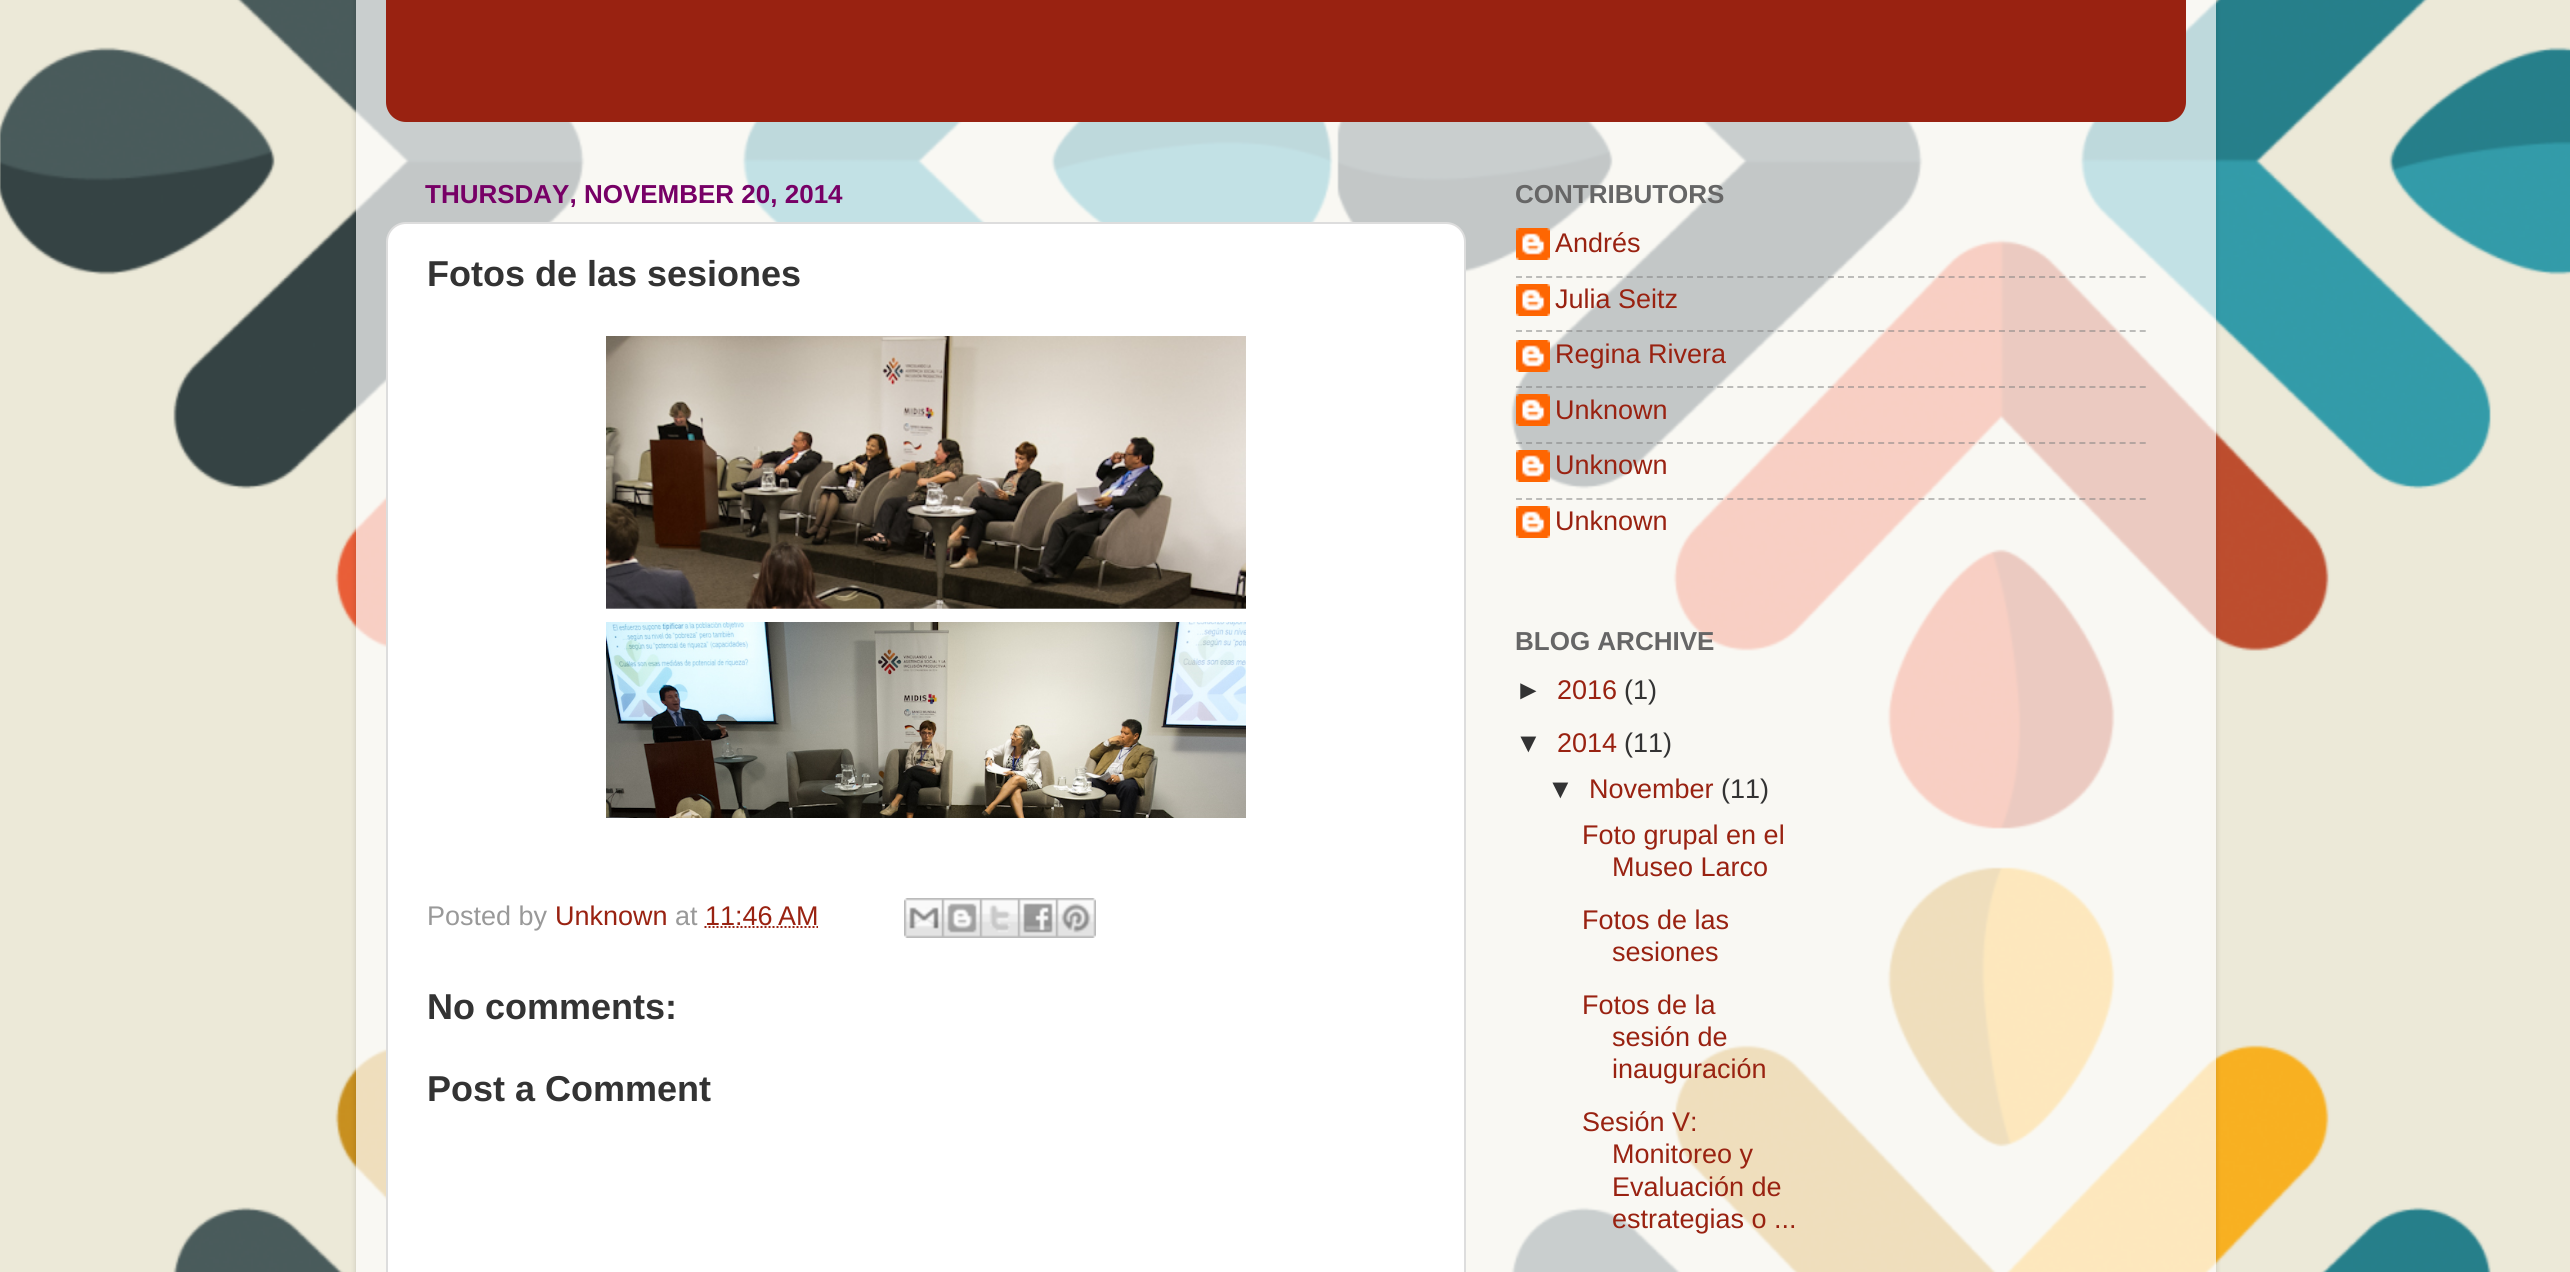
import math
import cairo

surface = cairo.ImageSurface(cairo.FORMAT_RGB24, 2570, 1272)
ctx = cairo.Context(surface)
options = cairo.FontOptions()
options.set_hint_metrics(cairo.HINT_METRICS_OFF)
options.set_hint_style(cairo.HINT_STYLE_NONE)
ctx.set_font_options(options)
ctx.set_miter_limit(4)


def round_rect(x, y, w, h, r):
    ctx.new_sub_path()
    for i, (u, v) in enumerate([(x + w - r, y + h - r), (x + r, y + h - r), (x + r, y + r), (x + w - r, y + r)]):
        ctx.arc(u, v, r, i * math.pi / 2, (i + 1) * math.pi / 2)
    ctx.close_path()


def shadow(x, y, w, h, r, blur, alpha):
    ctx.push_group_with_content(cairo.CONTENT_ALPHA)
    ctx.set_operator(cairo.OPERATOR_SOURCE)
    for i in range(15, -16, -2):
        e = blur * i / 6
        if min(w, h) + 2 * e > 0:
            ctx.set_source_rgba(0, 0, 0, alpha * math.erfc((i - 1) / 8.5) / 2)
            round_rect(x - e, y - e, w + 2 * e, h + 2 * e, max(0, min(r + e + blur * .6, min(w, h) / 2 + e)))
            ctx.fill()
    ctx.mask(ctx.pop_group())


def picture(path, x, y, w, h):
    ctx.save()
    ctx.set_source_surface(cairo.ImageSurface.create_from_png(path), x, y)
    ctx.rectangle(x, y, w, h)
    ctx.fill()
    ctx.restore()


ctx.set_source_rgb(1, 1, 1)
ctx.paint()
picture("img1.png", 0, 0, 2570, 1272)
ctx.save()
ctx.set_fill_rule(cairo.FILL_RULE_EVEN_ODD)
ctx.new_path()
ctx.move_to(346, 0)
ctx.line_to(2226, 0)
ctx.line_to(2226, 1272)
ctx.line_to(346, 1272)
ctx.close_path()
ctx.move_to(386, -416)
ctx.line_to(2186, -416)
ctx.curve_to(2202.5, -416, 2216, -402.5, 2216, -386)
ctx.line_to(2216, 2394)
ctx.curve_to(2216, 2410.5, 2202.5, 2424, 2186, 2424)
ctx.line_to(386, 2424)
ctx.curve_to(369.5, 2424, 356, 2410.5, 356, 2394)
ctx.line_to(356, -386)
ctx.curve_to(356, -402.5, 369.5, -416, 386, -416)
ctx.close_path()
ctx.clip()
ctx.set_source_rgb(0, 0, 0)
shadow(356, -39, 1860, 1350, 30, 3, 0.15)
ctx.restore()
ctx.set_source_rgba(1, 1, 1, 0.7)
ctx.rectangle(356, 0, 1860, 1272)
ctx.fill()
ctx.set_source_rgb(0.6, 0.133, 0.067)
round_rect(386, -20, 1800, 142, 20)
ctx.fill()
ctx.select_font_face("Liberation Sans", cairo.FONT_SLANT_NORMAL, cairo.FONT_WEIGHT_BOLD)
ctx.set_font_size(26)
ctx.set_source_rgb(0.467, 0, 0.4)
ctx.move_to(425, 203)
ctx.show_text("THURSDAY, NOVEMBER 20, 2014")
ctx.set_source_rgb(1, 1, 1)
round_rect(387, 223, 1078, 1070, 19)
ctx.fill_preserve()
ctx.set_source_rgb(0.867, 0.867, 0.867)
ctx.stroke()
ctx.set_font_size(36)
ctx.set_source_rgb(0.2, 0.2, 0.2)
ctx.move_to(427, 286)
ctx.show_text("Fotos de las sesiones")
picture("img2.png", 606, 336, 640, 273)
picture("img3.png", 606, 622, 640, 196)
ctx.select_font_face("Liberation Sans")
ctx.set_font_size(27)
ctx.set_source_rgb(0.6, 0.6, 0.6)
ctx.move_to(427, 925)
ctx.show_text("Posted by")
ctx.set_source_rgb(0.6, 0.133, 0.067)
ctx.move_to(555, 925)
ctx.show_text("Unknown")
ctx.set_source_rgb(0.6, 0.6, 0.6)
ctx.move_to(675, 925)
ctx.show_text("at")
ctx.set_source_rgb(0.6, 0.133, 0.067)
ctx.move_to(705, 925)
ctx.show_text("11:46 AM")
ctx.new_path()
ctx.move_to(704.5, 927)
ctx.line_to(818, 927)
ctx.set_dash([2, 2])
ctx.stroke()
picture("img4.png", 904, 898, 38, 40)
picture("img5.png", 942, 898, 38, 40)
picture("img6.png", 980, 898, 38, 40)
picture("img7.png", 1018, 898, 38, 40)
picture("img8.png", 1056, 898, 40, 40)
ctx.select_font_face("Liberation Sans", cairo.FONT_SLANT_NORMAL, cairo.FONT_WEIGHT_BOLD)
ctx.set_font_size(36)
ctx.set_source_rgb(0.2, 0.2, 0.2)
ctx.move_to(427, 1019)
ctx.show_text("No comments:")
ctx.move_to(427, 1101)
ctx.show_text("Post a Comment")
ctx.set_font_size(26)
ctx.set_source_rgb(0.4, 0.4, 0.4)
ctx.move_to(1515, 203)
ctx.show_text("CONTRIBUTORS")
picture("img9.png", 1516, 228, 34, 32)
ctx.select_font_face("Liberation Sans")
ctx.set_font_size(27)
ctx.set_source_rgb(0.6, 0.133, 0.067)
ctx.move_to(1555, 252)
ctx.show_text("Andrés")
ctx.new_path()
ctx.move_to(1516, 277)
ctx.line_to(2146, 277)
ctx.set_source_rgba(0.502, 0.502, 0.502, 0.5)
ctx.set_dash([6, 4.06])
ctx.stroke()
picture("img10.png", 1516, 284, 34, 32)
ctx.set_source_rgb(0.6, 0.133, 0.067)
ctx.move_to(1555, 308)
ctx.show_text("Julia Seitz")
ctx.new_path()
ctx.move_to(1516, 331)
ctx.line_to(2146, 331)
ctx.set_source_rgba(0.502, 0.502, 0.502, 0.5)
ctx.stroke()
picture("img11.png", 1516, 340, 34, 32)
ctx.set_source_rgb(0.6, 0.133, 0.067)
ctx.move_to(1555, 363)
ctx.show_text("Regina Rivera")
ctx.new_path()
ctx.move_to(1516, 387)
ctx.line_to(2146, 387)
ctx.set_source_rgba(0.502, 0.502, 0.502, 0.5)
ctx.stroke()
picture("img12.png", 1516, 394, 34, 32)
ctx.set_source_rgb(0.6, 0.133, 0.067)
ctx.move_to(1555, 419)
ctx.show_text("Unknown")
ctx.new_path()
ctx.move_to(1516, 443)
ctx.line_to(2146, 443)
ctx.set_source_rgba(0.502, 0.502, 0.502, 0.5)
ctx.stroke()
picture("img13.png", 1516, 450, 34, 32)
ctx.set_source_rgb(0.6, 0.133, 0.067)
ctx.move_to(1555, 474)
ctx.show_text("Unknown")
ctx.new_path()
ctx.move_to(1516, 499)
ctx.line_to(2146, 499)
ctx.set_source_rgba(0.502, 0.502, 0.502, 0.5)
ctx.stroke()
picture("img10.png", 1516, 506, 34, 32)
ctx.set_source_rgb(0.6, 0.133, 0.067)
ctx.move_to(1555, 530)
ctx.show_text("Unknown")
ctx.select_font_face("Liberation Sans", cairo.FONT_SLANT_NORMAL, cairo.FONT_WEIGHT_BOLD)
ctx.set_font_size(26)
ctx.set_source_rgb(0.4, 0.4, 0.4)
ctx.move_to(1515, 650)
ctx.show_text("BLOG ARCHIVE")
ctx.select_font_face("Liberation Sans")
ctx.set_font_size(27)
ctx.set_source_rgb(0.2, 0.2, 0.2)
ctx.move_to(1515, 699)
ctx.show_text("►")
ctx.set_source_rgb(0.6, 0.133, 0.067)
ctx.move_to(1557, 699)
ctx.show_text("2016")
ctx.set_source_rgb(0.2, 0.2, 0.2)
ctx.move_to(1624, 699)
ctx.show_text("(1)")
ctx.move_to(1515, 752)
ctx.show_text("▼")
ctx.set_source_rgb(0.6, 0.133, 0.067)
ctx.move_to(1557, 752)
ctx.show_text("2014")
ctx.set_source_rgb(0.2, 0.2, 0.2)
ctx.move_to(1624, 752)
ctx.show_text("(11)")
ctx.move_to(1547, 798)
ctx.show_text("▼")
ctx.set_source_rgb(0.6, 0.133, 0.067)
ctx.move_to(1589, 798)
ctx.show_text("November")
ctx.set_source_rgb(0.2, 0.2, 0.2)
ctx.move_to(1721, 798)
ctx.show_text("(11)")
ctx.set_source_rgb(0.6, 0.133, 0.067)
ctx.move_to(1582, 844)
ctx.show_text("Foto grupal en el")
ctx.move_to(1612, 876)
ctx.show_text("Museo Larco")
ctx.move_to(1582, 929)
ctx.show_text("Fotos de las")
ctx.move_to(1612, 961)
ctx.show_text("sesiones")
ctx.move_to(1582, 1014)
ctx.show_text("Fotos de la")
ctx.move_to(1612, 1046)
ctx.show_text("sesión de")
ctx.move_to(1612, 1078)
ctx.show_text("inauguración")
ctx.move_to(1582, 1131)
ctx.show_text("Sesión V:")
ctx.move_to(1612, 1163)
ctx.show_text("Monitoreo y")
ctx.move_to(1612, 1196)
ctx.show_text("Evaluación de")
ctx.move_to(1612, 1228)
ctx.show_text("estrategias o ...")
surface.write_to_png("page.png")
